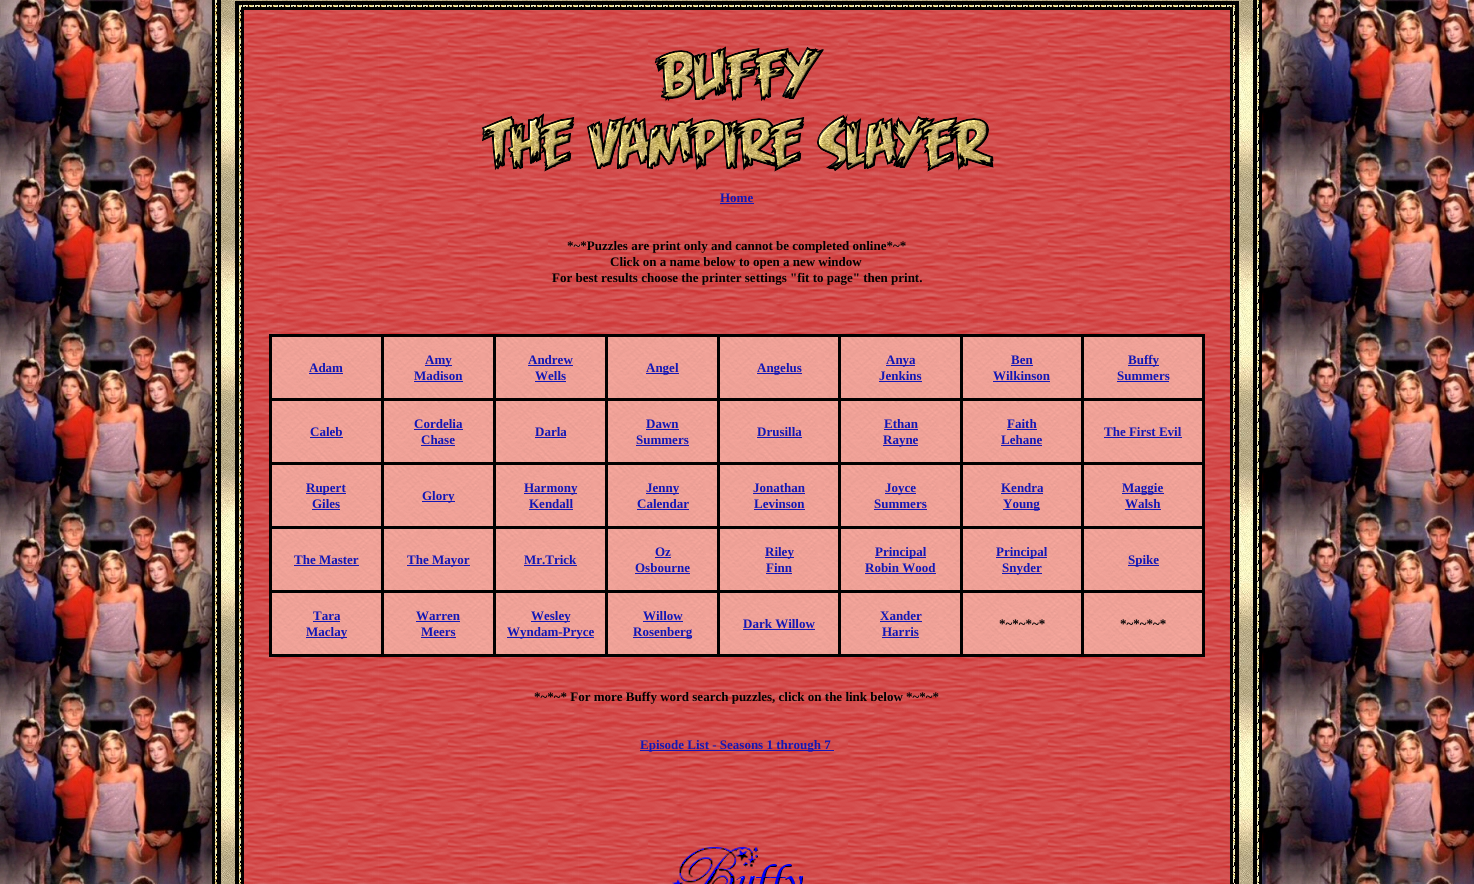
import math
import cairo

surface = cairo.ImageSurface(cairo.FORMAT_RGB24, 1474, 884)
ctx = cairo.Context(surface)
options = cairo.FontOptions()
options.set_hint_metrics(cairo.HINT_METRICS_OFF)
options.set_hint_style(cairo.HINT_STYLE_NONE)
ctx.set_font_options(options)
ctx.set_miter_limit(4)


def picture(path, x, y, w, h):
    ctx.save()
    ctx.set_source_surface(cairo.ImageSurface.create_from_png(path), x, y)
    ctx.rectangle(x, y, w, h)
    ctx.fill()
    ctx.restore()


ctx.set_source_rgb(1, 1, 1)
ctx.paint()
picture("img1.png", 0, 0, 1474, 884)
ctx.set_source_rgb(0, 0, 0)
ctx.rectangle(212, 0, 1050, 884)
ctx.fill()
picture("img2.png", 215, 0, 1044, 884)
ctx.rectangle(217, 0, 1040, 884)
ctx.fill()
picture("img3.png", 221, 0, 1032, 884)
ctx.rectangle(235, 1, 1004, 883)
ctx.fill()
picture("img4.png", 239, 5, 996, 879)
ctx.rectangle(241, 7, 992, 877)
ctx.fill()
picture("img5.png", 244, 10, 986, 874)
picture("img6.png", 481, 46, 513, 126)
ctx.select_font_face("Liberation Serif", cairo.FONT_SLANT_NORMAL, cairo.FONT_WEIGHT_BOLD)
ctx.set_font_size(13)
ctx.set_source_rgb(0.075, 0.09, 0.71)
ctx.move_to(720, 202)
ctx.show_text("Home")
ctx.rectangle(720, 203, 34, 1)
ctx.fill()
ctx.set_source_rgb(0, 0, 0)
ctx.move_to(567, 250)
ctx.show_text("*~*Puzzles are print only and cannot be completed online*~*")
ctx.move_to(610, 266)
ctx.show_text("Click on a name below to open a new window")
ctx.move_to(552, 282)
ctx.show_text("For best results choose the printer settings \"fit to page\" then print.")
ctx.rectangle(269, 334, 936, 323)
ctx.fill()
picture("img7.png", 272, 337, 109, 61)
ctx.set_source_rgb(0.075, 0.09, 0.71)
ctx.move_to(309, 372)
ctx.show_text("Adam")
ctx.rectangle(309, 373, 34, 1)
ctx.fill()
picture("img7.png", 384, 337, 109, 61)
ctx.rectangle(425, 365, 27, 1)
ctx.fill()
ctx.move_to(425, 364)
ctx.show_text("Amy")
ctx.move_to(414, 380)
ctx.show_text("Madison")
ctx.rectangle(414, 381, 49, 1)
ctx.fill()
picture("img7.png", 496, 337, 109, 61)
ctx.move_to(528, 364)
ctx.show_text("Andrew")
ctx.rectangle(528, 365, 45, 1)
ctx.fill()
ctx.move_to(535, 380)
ctx.show_text("Wells")
ctx.rectangle(535, 381, 31, 1)
ctx.fill()
picture("img7.png", 608, 337, 109, 61)
ctx.rectangle(646, 373, 33, 1)
ctx.fill()
ctx.move_to(646, 372)
ctx.show_text("Angel")
picture("img8.png", 720, 337, 118, 61)
ctx.rectangle(757, 373, 45, 1)
ctx.fill()
ctx.move_to(757, 372)
ctx.show_text("Angelus")
picture("img9.png", 841, 337, 119, 61)
ctx.rectangle(886, 365, 29, 1)
ctx.fill()
ctx.move_to(886, 364)
ctx.show_text("Anya")
ctx.move_to(879, 380)
ctx.show_text("Jenkins")
ctx.rectangle(879, 381, 43, 1)
ctx.fill()
picture("img8.png", 963, 337, 118, 61)
ctx.move_to(1011, 364)
ctx.show_text("Ben")
ctx.rectangle(1011, 365, 22, 1)
ctx.fill()
ctx.move_to(993, 380)
ctx.show_text("Wilkinson")
ctx.rectangle(993, 381, 57, 1)
ctx.fill()
picture("img8.png", 1084, 337, 118, 61)
ctx.rectangle(1128, 365, 31, 1)
ctx.fill()
ctx.move_to(1128, 364)
ctx.show_text("Buffy")
ctx.move_to(1117, 380)
ctx.show_text("Summers")
ctx.rectangle(1117, 381, 52, 1)
ctx.fill()
picture("img7.png", 272, 401, 109, 61)
ctx.move_to(310, 436)
ctx.show_text("Caleb")
ctx.rectangle(310, 437, 33, 1)
ctx.fill()
picture("img7.png", 384, 401, 109, 61)
ctx.move_to(414, 428)
ctx.show_text("Cordelia")
ctx.rectangle(414, 429, 49, 1)
ctx.fill()
ctx.move_to(421, 444)
ctx.show_text("Chase")
ctx.rectangle(421, 445, 34, 1)
ctx.fill()
picture("img7.png", 496, 401, 109, 61)
ctx.move_to(535, 436)
ctx.show_text("Darla")
ctx.rectangle(535, 437, 31, 1)
ctx.fill()
picture("img7.png", 608, 401, 109, 61)
ctx.move_to(646, 428)
ctx.show_text("Dawn")
ctx.rectangle(646, 429, 33, 1)
ctx.fill()
ctx.move_to(636, 444)
ctx.show_text("Summers")
ctx.rectangle(636, 445, 53, 1)
ctx.fill()
picture("img8.png", 720, 401, 118, 61)
ctx.move_to(757, 436)
ctx.show_text("Drusilla")
ctx.rectangle(757, 437, 45, 1)
ctx.fill()
picture("img9.png", 841, 401, 119, 61)
ctx.move_to(884, 428)
ctx.show_text("Ethan")
ctx.rectangle(884, 429, 34, 1)
ctx.fill()
ctx.rectangle(883, 445, 35, 1)
ctx.fill()
ctx.move_to(883, 444)
ctx.show_text("Rayne")
picture("img8.png", 963, 401, 118, 61)
ctx.move_to(1007, 428)
ctx.show_text("Faith")
ctx.rectangle(1007, 429, 30, 1)
ctx.fill()
ctx.move_to(1001, 444)
ctx.show_text("Lehane")
ctx.rectangle(1001, 445, 41, 1)
ctx.fill()
picture("img8.png", 1084, 401, 118, 61)
ctx.move_to(1104, 436)
ctx.show_text("The First Evil")
ctx.rectangle(1104, 437, 78, 1)
ctx.fill()
picture("img7.png", 272, 465, 109, 61)
ctx.rectangle(306, 493, 40, 1)
ctx.fill()
ctx.move_to(306, 492)
ctx.show_text("Rupert")
ctx.move_to(312, 508)
ctx.show_text("Giles")
ctx.rectangle(312, 509, 28, 1)
ctx.fill()
picture("img7.png", 384, 465, 109, 61)
ctx.rectangle(422, 501, 33, 1)
ctx.fill()
ctx.move_to(422, 500)
ctx.show_text("Glory")
picture("img7.png", 496, 465, 109, 61)
ctx.rectangle(524, 493, 53, 1)
ctx.fill()
ctx.move_to(524, 492)
ctx.show_text("Harmony")
ctx.move_to(529, 508)
ctx.show_text("Kendall")
ctx.rectangle(529, 509, 44, 1)
ctx.fill()
picture("img7.png", 608, 465, 109, 61)
ctx.rectangle(646, 493, 33, 1)
ctx.fill()
ctx.move_to(646, 492)
ctx.show_text("Jenny")
ctx.move_to(637, 508)
ctx.show_text("Calendar")
ctx.rectangle(637, 509, 52, 1)
ctx.fill()
picture("img8.png", 720, 465, 118, 61)
ctx.move_to(753, 492)
ctx.show_text("Jonathan")
ctx.rectangle(753, 493, 52, 1)
ctx.fill()
ctx.move_to(754, 508)
ctx.show_text("Levinson")
ctx.rectangle(754, 509, 51, 1)
ctx.fill()
picture("img9.png", 841, 465, 119, 61)
ctx.rectangle(885, 493, 31, 1)
ctx.fill()
ctx.move_to(885, 492)
ctx.show_text("Joyce")
ctx.move_to(874, 508)
ctx.show_text("Summers")
ctx.rectangle(874, 509, 53, 1)
ctx.fill()
picture("img8.png", 963, 465, 118, 61)
ctx.move_to(1001, 492)
ctx.show_text("Kendra")
ctx.rectangle(1001, 493, 42, 1)
ctx.fill()
ctx.rectangle(1003, 509, 37, 1)
ctx.fill()
ctx.move_to(1003, 508)
ctx.show_text("Young")
picture("img8.png", 1084, 465, 118, 61)
ctx.rectangle(1122, 493, 42, 1)
ctx.fill()
ctx.move_to(1122, 492)
ctx.show_text("Maggie")
ctx.move_to(1125, 508)
ctx.show_text("Walsh")
ctx.rectangle(1125, 509, 36, 1)
ctx.fill()
picture("img7.png", 272, 529, 109, 61)
ctx.move_to(294, 564)
ctx.show_text("The Master")
ctx.rectangle(294, 565, 65, 1)
ctx.fill()
picture("img7.png", 384, 529, 109, 61)
ctx.rectangle(407, 565, 63, 1)
ctx.fill()
ctx.move_to(407, 564)
ctx.show_text("The Mayor")
picture("img7.png", 496, 529, 109, 61)
ctx.move_to(524, 564)
ctx.show_text("Mr.Trick")
ctx.rectangle(524, 565, 53, 1)
ctx.fill()
picture("img7.png", 608, 529, 109, 61)
ctx.move_to(655, 556)
ctx.show_text("Oz")
ctx.rectangle(655, 557, 16, 1)
ctx.fill()
ctx.move_to(635, 572)
ctx.show_text("Osbourne")
ctx.rectangle(635, 573, 55, 1)
ctx.fill()
picture("img8.png", 720, 529, 118, 61)
ctx.rectangle(765, 557, 29, 1)
ctx.fill()
ctx.move_to(765, 556)
ctx.show_text("Riley")
ctx.move_to(766, 572)
ctx.show_text("Finn")
ctx.rectangle(766, 573, 26, 1)
ctx.fill()
picture("img9.png", 841, 529, 119, 61)
ctx.rectangle(875, 557, 51, 1)
ctx.fill()
ctx.move_to(875, 556)
ctx.show_text("Principal")
ctx.move_to(865, 572)
ctx.show_text("Robin Wood")
ctx.rectangle(865, 573, 71, 1)
ctx.fill()
picture("img8.png", 963, 529, 118, 61)
ctx.rectangle(996, 557, 51, 1)
ctx.fill()
ctx.move_to(996, 556)
ctx.show_text("Principal")
ctx.rectangle(1002, 573, 40, 1)
ctx.fill()
ctx.move_to(1002, 572)
ctx.show_text("Snyder")
picture("img8.png", 1084, 529, 118, 61)
ctx.rectangle(1128, 565, 31, 1)
ctx.fill()
ctx.move_to(1128, 564)
ctx.show_text("Spike")
picture("img7.png", 272, 593, 109, 61)
ctx.move_to(313, 620)
ctx.show_text("Tara")
ctx.rectangle(313, 621, 27, 1)
ctx.fill()
ctx.rectangle(306, 637, 41, 1)
ctx.fill()
ctx.move_to(306, 636)
ctx.show_text("Maclay")
picture("img7.png", 384, 593, 109, 61)
ctx.move_to(416, 620)
ctx.show_text("Warren")
ctx.rectangle(416, 621, 44, 1)
ctx.fill()
ctx.move_to(421, 636)
ctx.show_text("Meers")
ctx.rectangle(421, 637, 35, 1)
ctx.fill()
picture("img7.png", 496, 593, 109, 61)
ctx.rectangle(531, 621, 39, 1)
ctx.fill()
ctx.move_to(531, 620)
ctx.show_text("Wesley")
ctx.rectangle(507, 637, 87, 1)
ctx.fill()
ctx.move_to(507, 636)
ctx.show_text("Wyndam-Pryce")
picture("img7.png", 608, 593, 109, 61)
ctx.move_to(643, 620)
ctx.show_text("Willow")
ctx.rectangle(643, 621, 40, 1)
ctx.fill()
ctx.rectangle(633, 637, 59, 1)
ctx.fill()
ctx.move_to(633, 636)
ctx.show_text("Rosenberg")
picture("img8.png", 720, 593, 118, 61)
ctx.move_to(743, 628)
ctx.show_text("Dark Willow")
ctx.rectangle(743, 629, 72, 1)
ctx.fill()
picture("img9.png", 841, 593, 119, 61)
ctx.move_to(880, 620)
ctx.show_text("Xander")
ctx.rectangle(880, 621, 42, 1)
ctx.fill()
ctx.move_to(882, 636)
ctx.show_text("Harris")
ctx.rectangle(882, 637, 37, 1)
ctx.fill()
picture("img8.png", 963, 593, 118, 61)
ctx.set_source_rgb(0, 0, 0)
ctx.move_to(999, 628)
ctx.show_text("*~*~*~*")
picture("img8.png", 1084, 593, 118, 61)
ctx.move_to(1120, 628)
ctx.show_text("*~*~*~*")
ctx.move_to(534, 701)
ctx.show_text("*~*~* For more Buffy word search puzzles, click on the link below *~*~*")
ctx.set_source_rgb(0.075, 0.09, 0.71)
ctx.rectangle(640, 750, 194, 1)
ctx.fill()
ctx.move_to(640, 749)
ctx.show_text("Episode List - Seasons 1 through 7")
picture("img10.png", 672, 846, 131, 38)
surface.write_to_png("page.png")
